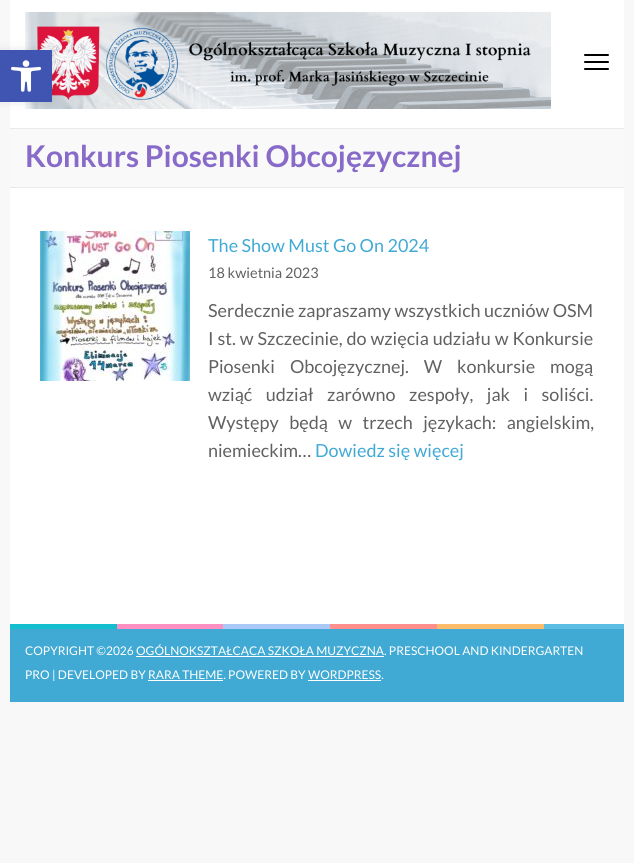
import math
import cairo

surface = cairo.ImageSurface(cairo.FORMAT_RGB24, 634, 863)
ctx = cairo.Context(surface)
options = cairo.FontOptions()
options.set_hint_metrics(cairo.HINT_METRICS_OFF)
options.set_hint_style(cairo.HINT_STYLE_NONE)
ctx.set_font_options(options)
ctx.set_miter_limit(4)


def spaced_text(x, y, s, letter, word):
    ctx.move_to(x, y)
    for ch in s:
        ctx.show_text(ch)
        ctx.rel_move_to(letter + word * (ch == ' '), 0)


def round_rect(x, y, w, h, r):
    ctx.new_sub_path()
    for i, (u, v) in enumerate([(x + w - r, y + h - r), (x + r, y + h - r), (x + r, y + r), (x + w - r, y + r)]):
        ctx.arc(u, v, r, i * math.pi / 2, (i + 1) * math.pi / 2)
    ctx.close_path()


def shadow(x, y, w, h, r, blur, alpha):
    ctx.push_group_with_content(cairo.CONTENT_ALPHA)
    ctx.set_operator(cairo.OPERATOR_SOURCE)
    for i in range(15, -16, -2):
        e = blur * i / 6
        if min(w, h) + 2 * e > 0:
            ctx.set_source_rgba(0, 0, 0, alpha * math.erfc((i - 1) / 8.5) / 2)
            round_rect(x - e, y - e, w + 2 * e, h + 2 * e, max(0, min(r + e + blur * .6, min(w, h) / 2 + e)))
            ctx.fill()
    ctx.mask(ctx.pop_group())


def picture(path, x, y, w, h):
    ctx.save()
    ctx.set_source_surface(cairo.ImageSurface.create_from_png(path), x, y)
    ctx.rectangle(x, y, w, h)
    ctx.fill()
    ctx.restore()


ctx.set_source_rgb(0.969, 0.969, 0.969)
ctx.paint()
ctx.set_source_rgb(1, 1, 1)
ctx.rectangle(10, 0, 614, 624)
ctx.fill()
picture("img2.png", 25, 12, 526, 97)
ctx.set_source_rgb(0, 0, 0)
shadow(0, 50, 52, 52, 0, 5, 0.1)
ctx.set_source_rgb(0.251, 0.329, 0.698)
ctx.rectangle(0, 50, 52, 52)
ctx.fill()
picture("img1.png", 11, 60, 30, 32)
ctx.set_source_rgb(0, 0, 0)
round_rect(584, 54, 25, 2, 1)
ctx.fill()
round_rect(584, 61, 25, 2, 1)
ctx.fill()
round_rect(584, 68, 25, 2, 1)
ctx.fill()
ctx.set_source_rgb(0.976, 0.976, 0.976)
ctx.rectangle(10, 129, 614, 58)
ctx.fill()
ctx.set_source_rgb(0.914, 0.914, 0.914)
ctx.rectangle(10, 128, 614, 1)
ctx.fill()
ctx.rectangle(10, 187, 614, 1)
ctx.fill()
ctx.select_font_face("Lato", cairo.FONT_SLANT_NORMAL, cairo.FONT_WEIGHT_BOLD)
ctx.set_font_size(30)
ctx.set_source_rgb(0.533, 0.416, 0.788)
ctx.move_to(25, 167)
ctx.show_text("Konkurs Piosenki Obcojęzycznej")
picture("img3.png", 40, 231, 150, 150)
ctx.select_font_face("Lato")
ctx.set_font_size(18)
ctx.set_source_rgb(0.255, 0.667, 0.831)
ctx.move_to(208, 252)
ctx.show_text("The Show Must Go On 2024")
ctx.set_font_size(14.5)
ctx.set_source_rgb(0.38, 0.38, 0.38)
ctx.move_to(208, 278)
ctx.show_text("18 kwietnia 2023")
ctx.set_font_size(18)
ctx.move_to(208, 317)
ctx.show_text("Serdecznie zapraszamy wszystkich uczniów OSM")
spaced_text(208, 345, "I st. w Szczecinie, do wzięcia udziału w Konkursie", 0, 0.5)
spaced_text(208, 373, "Piosenki Obcojęzycznej. W konkursie mogą", 0, 11.5)
spaced_text(208, 401, "wziąć udział zarówno zespoły, jak i soliści.", 0, 10)
spaced_text(208, 429, "Występy będą w trzech językach: angielskim,", 0, 7)
ctx.move_to(208, 457)
ctx.show_text("niemieckim…")
ctx.set_source_rgb(0.255, 0.667, 0.831)
ctx.move_to(315, 457)
ctx.show_text("Dowiedz się więcej")
ctx.rectangle(10, 629, 614, 73)
ctx.fill()
picture("img4.png", 10, 624, 614, 5)
ctx.set_font_size(12)
ctx.set_source_rgb(1, 1, 1)
ctx.move_to(25, 655)
ctx.show_text("COPYRIGHT ©2026")
ctx.rectangle(136, 656, 248, 1)
ctx.fill()
ctx.move_to(136, 655)
ctx.show_text("OGÓLNOKSZTAŁCĄCA SZKOŁA MUZYCZNA. PRESCHOOL AND KINDERGARTEN")
ctx.move_to(25, 679)
ctx.show_text("PRO | DEVELOPED BY RARA THEME. POWERED BY WORDPRESS.")
ctx.rectangle(148, 680, 75, 1)
ctx.fill()
ctx.rectangle(308, 680, 73, 1)
ctx.fill()
surface.write_to_png("page.png")
